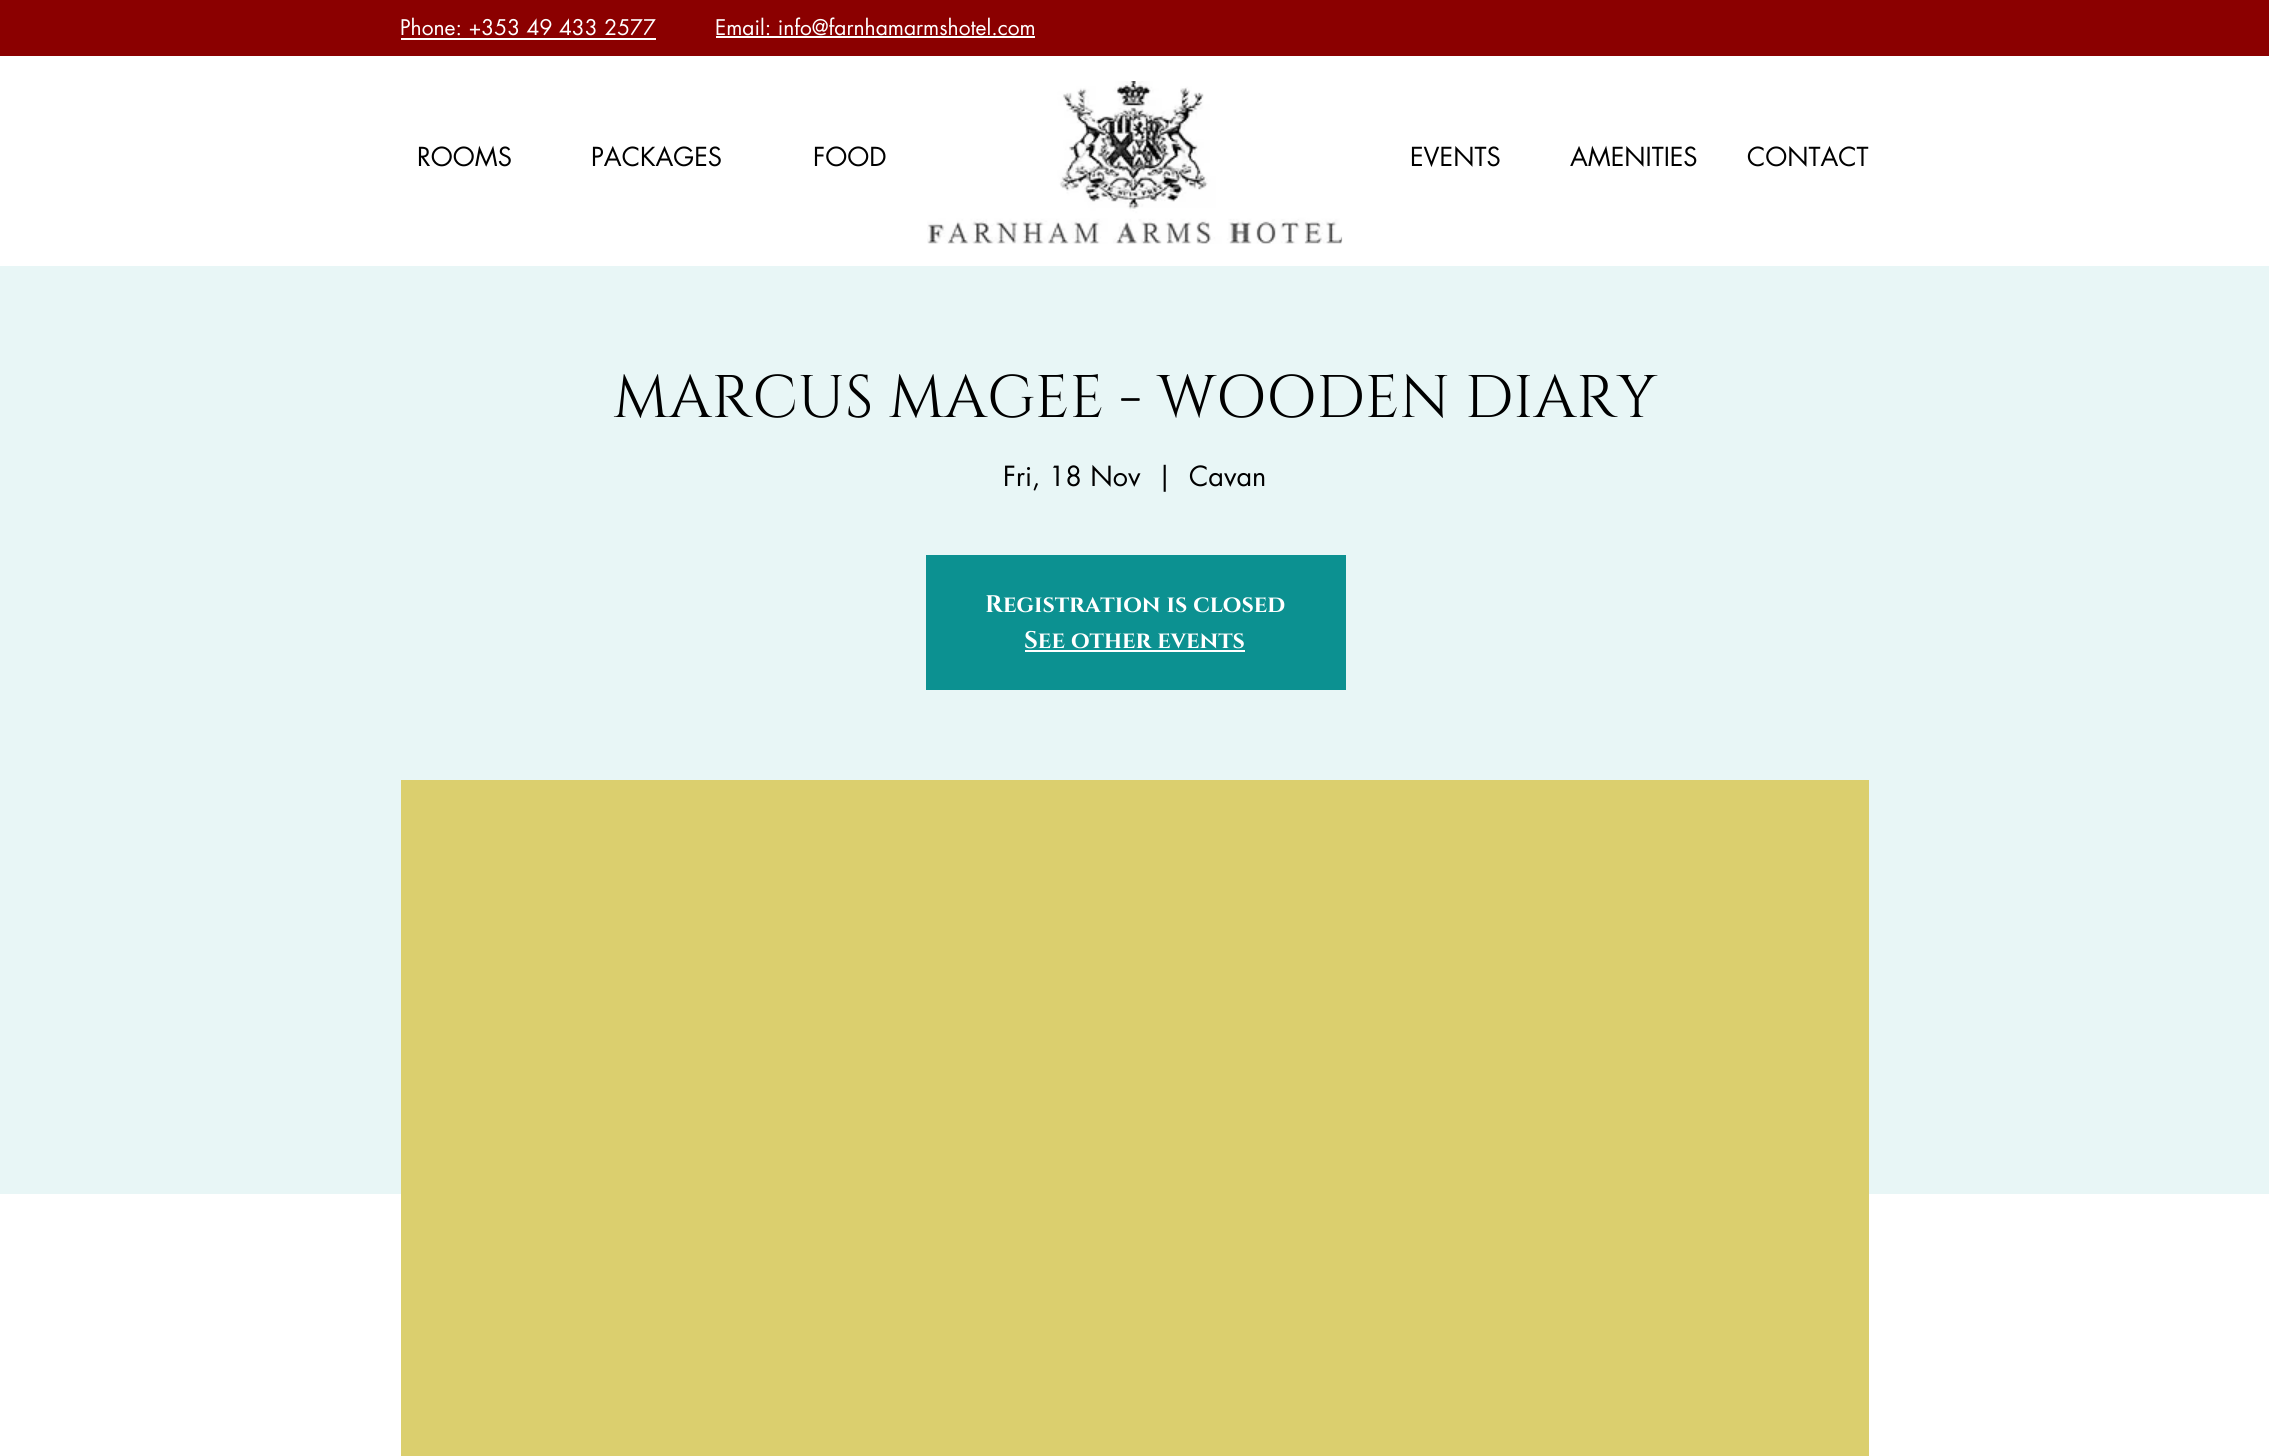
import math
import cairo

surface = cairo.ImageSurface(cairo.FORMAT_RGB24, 2269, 1456)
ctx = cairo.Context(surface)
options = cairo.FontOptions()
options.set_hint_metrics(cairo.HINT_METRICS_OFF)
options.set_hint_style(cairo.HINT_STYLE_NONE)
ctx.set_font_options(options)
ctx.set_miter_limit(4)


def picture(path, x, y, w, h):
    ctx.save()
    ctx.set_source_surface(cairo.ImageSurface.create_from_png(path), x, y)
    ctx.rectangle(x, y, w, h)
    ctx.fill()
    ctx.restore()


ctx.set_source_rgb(1, 1, 1)
ctx.paint()
ctx.set_source_rgb(0.545, 0, 0)
ctx.rectangle(0, 0, 2269, 56)
ctx.fill()
ctx.select_font_face("futura")
ctx.set_font_size(21)
ctx.set_source_rgb(1, 1, 1)
ctx.move_to(400, 35)
ctx.show_text("Phone: +353 49 433 2577")
ctx.rectangle(401, 38, 255, 2)
ctx.fill()
ctx.move_to(715, 35)
ctx.show_text("Email: info@farnhamarmshotel.com")
ctx.rectangle(716, 36, 319, 2)
ctx.fill()
ctx.set_font_size(25.5)
ctx.set_source_rgb(0, 0, 0)
ctx.move_to(417, 166)
ctx.show_text("ROOMS")
ctx.move_to(591, 166)
ctx.show_text("PACKAGES")
ctx.move_to(813, 166)
ctx.show_text("FOOD")
picture("img1.png", 927, 81, 416, 163)
ctx.move_to(1410, 166)
ctx.show_text("EVENTS")
ctx.move_to(1570, 166)
ctx.show_text("AMENITIES")
ctx.move_to(1747, 166)
ctx.show_text("CONTACT")
ctx.set_source_rgb(0.91, 0.961, 0.961)
ctx.rectangle(0, 266, 2269, 928)
ctx.fill()
ctx.select_font_face("Cinzel")
ctx.set_font_size(60)
ctx.set_source_rgb(0, 0, 0)
ctx.move_to(613, 417)
ctx.show_text("MARCUS MAGEE - WOODEN DIARY")
ctx.select_font_face("futura")
ctx.set_font_size(27)
ctx.move_to(1003, 486)
ctx.show_text("Fri, 18 Nov")
ctx.move_to(1157, 486)
ctx.show_text("|")
ctx.move_to(1189, 486)
ctx.show_text("Cavan")
ctx.set_source_rgb(0.047, 0.569, 0.569)
ctx.rectangle(926, 555, 420, 135)
ctx.fill()
ctx.select_font_face("Cinzel", cairo.FONT_SLANT_NORMAL, cairo.FONT_WEIGHT_BOLD)
ctx.set_font_size(24)
ctx.set_source_rgb(1, 1, 1)
ctx.move_to(985, 612)
ctx.show_text("Registration is closed")
ctx.move_to(1024, 648)
ctx.show_text("See other events")
ctx.rectangle(1025, 650, 220, 2)
ctx.fill()
ctx.set_source_rgb(0.859, 0.812, 0.431)
ctx.rectangle(401, 780, 1468, 676)
ctx.fill()
surface.write_to_png("page.png")
